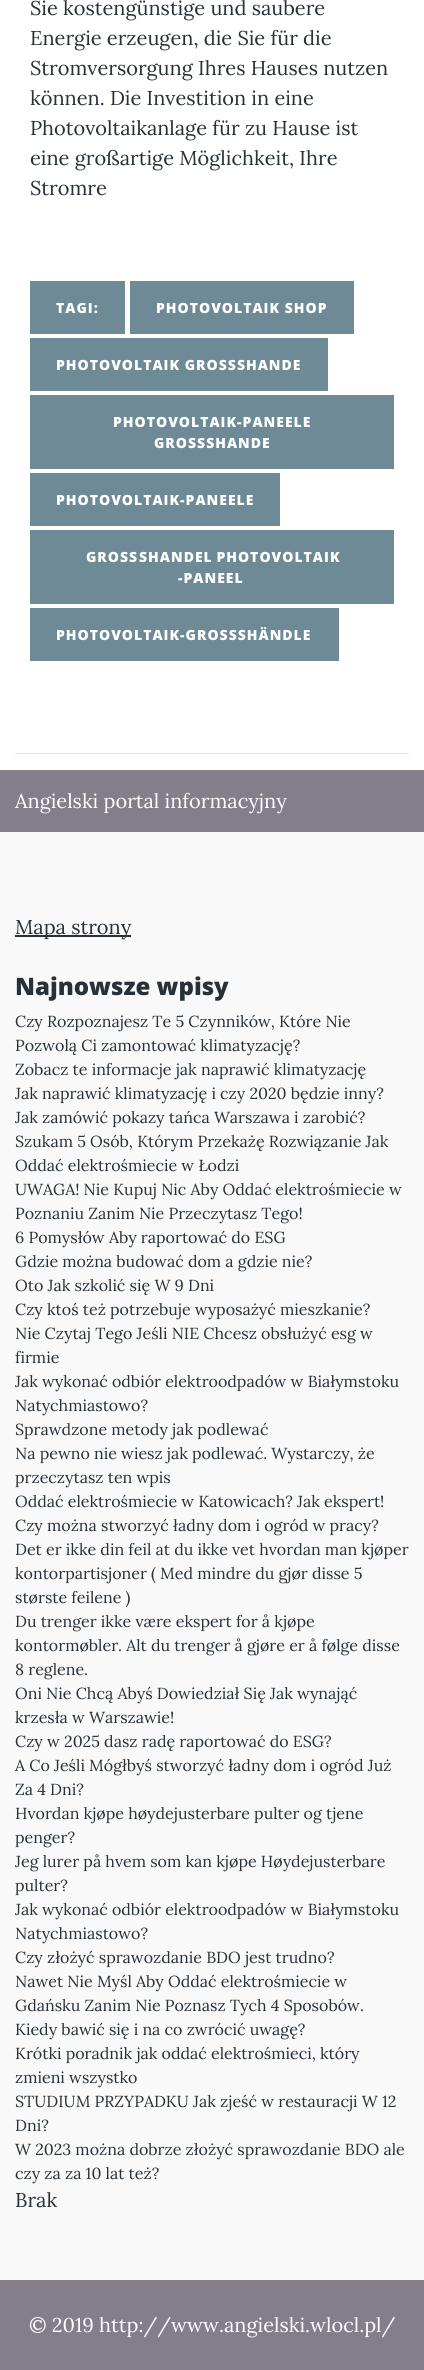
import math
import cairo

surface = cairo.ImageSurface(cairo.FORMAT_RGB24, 424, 2370)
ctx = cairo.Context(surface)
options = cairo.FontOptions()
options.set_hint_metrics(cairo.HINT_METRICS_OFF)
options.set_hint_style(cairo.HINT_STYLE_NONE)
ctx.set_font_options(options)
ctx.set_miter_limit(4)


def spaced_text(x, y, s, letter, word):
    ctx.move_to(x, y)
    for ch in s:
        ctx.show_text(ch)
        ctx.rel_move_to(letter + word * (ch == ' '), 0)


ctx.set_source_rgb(1, 1, 1)
ctx.paint()
ctx.select_font_face("Lora")
ctx.set_font_size(20)
ctx.set_source_rgb(0.157, 0.192, 0.22)
ctx.move_to(30, 15)
ctx.show_text("Sie kostengünstige und saubere")
ctx.move_to(30, 45)
ctx.show_text("Energie erzeugen, die Sie für die")
ctx.move_to(30, 75)
ctx.show_text("Stromversorgung Ihres Hauses nutzen")
ctx.move_to(30, 105)
ctx.show_text("können. Die Investition in eine")
ctx.move_to(30, 135)
ctx.show_text("Photovoltaikanlage für zu Hause ist")
ctx.move_to(30, 165)
ctx.show_text("eine großartige Möglichkeit, Ihre")
ctx.move_to(30, 195)
ctx.show_text("Stromre")
ctx.set_source_rgb(0.427, 0.541, 0.588)
ctx.rectangle(30, 281, 95, 53)
ctx.fill()
ctx.select_font_face("Open Sans ExtraBold")
ctx.set_font_size(14)
ctx.set_source_rgb(1, 1, 1)
spaced_text(56, 313, "TAGI:", 1, 0)
ctx.set_source_rgb(0.427, 0.541, 0.588)
ctx.rectangle(130, 281, 224, 53)
ctx.fill()
ctx.set_source_rgb(1, 1, 1)
spaced_text(156, 313, "PHOTOVOLTAIK SHOP", 1, 0)
ctx.set_source_rgb(0.427, 0.541, 0.588)
ctx.rectangle(30, 338, 298, 53)
ctx.fill()
ctx.set_source_rgb(1, 1, 1)
spaced_text(56, 370, "PHOTOVOLTAIK GROSSSHANDE", 1, 0)
ctx.set_source_rgb(0.427, 0.541, 0.588)
ctx.rectangle(30, 395, 364, 74)
ctx.fill()
ctx.set_source_rgb(1, 1, 1)
spaced_text(113, 427, "PHOTOVOLTAIK-PANEELE", 1, 0)
spaced_text(154, 448, "GROSSSHANDE", 1, 0)
ctx.set_source_rgb(0.427, 0.541, 0.588)
ctx.rectangle(30, 473, 250, 53)
ctx.fill()
ctx.set_source_rgb(1, 1, 1)
spaced_text(56, 505, "PHOTOVOLTAIK-PANEELE", 1, 0)
ctx.set_source_rgb(0.427, 0.541, 0.588)
ctx.rectangle(30, 530, 364, 74)
ctx.fill()
ctx.set_source_rgb(1, 1, 1)
spaced_text(86, 562, "GROSS", 1, 0)
spaced_text(139, 562, "SHANDEL PHOTOVOLTAIK", 1, -1)
spaced_text(178, 583, "-PANEEL", 1, 0)
ctx.set_source_rgb(0.427, 0.541, 0.588)
ctx.rectangle(30, 608, 309, 53)
ctx.fill()
ctx.set_source_rgb(1, 1, 1)
spaced_text(56, 640, "PHOTOVOLTAIK-GROSSSHÄNDLE", 1, 0)
ctx.set_source_rgb(0.902, 0.902, 0.902)
ctx.rectangle(15, 753, 394, 1)
ctx.fill()
ctx.set_source_rgb(0.514, 0.494, 0.541)
ctx.rectangle(0, 770, 424, 62)
ctx.fill()
ctx.select_font_face("Lora")
ctx.set_font_size(20)
ctx.set_source_rgb(1, 1, 1)
ctx.move_to(15, 808)
ctx.show_text("Angielski portal informacyjny")
ctx.set_source_rgb(0.973, 0.976, 0.98)
ctx.rectangle(0, 832, 424, 1448)
ctx.fill()
ctx.set_source_rgb(0.157, 0.192, 0.22)
ctx.rectangle(15, 935, 116, 2)
ctx.fill()
ctx.move_to(15, 934)
ctx.show_text("Mapa strony")
ctx.select_font_face("Open Sans ExtraBold")
ctx.set_font_size(24)
ctx.move_to(15, 995)
ctx.show_text("Najnowsze wpisy")
ctx.select_font_face("Lora")
ctx.set_font_size(16)
ctx.move_to(15, 1027)
ctx.show_text("Czy Rozpoznajesz Te 5 Czynników, Które Nie")
ctx.move_to(15, 1051)
ctx.show_text("Pozwolą Ci zamontować klimatyzację?")
ctx.move_to(15, 1075)
ctx.show_text("Zobacz te informacje jak naprawić klimatyzację")
ctx.move_to(15, 1099)
ctx.show_text("Jak naprawić klimatyzację i czy 2020 będzie inny?")
ctx.move_to(15, 1123)
ctx.show_text("Jak zamówić pokazy tańca Warszawa i zarobić?")
ctx.move_to(15, 1147)
ctx.show_text("Szukam 5 Osób, Którym Przekażę Rozwiązanie Jak")
ctx.move_to(15, 1171)
ctx.show_text("Oddać elektrośmiecie w Łodzi")
ctx.move_to(15, 1195)
ctx.show_text("UWAGA! Nie Kupuj Nic Aby Oddać elektrośmiecie w")
ctx.move_to(15, 1219)
ctx.show_text("Poznaniu Zanim Nie Przeczytasz Tego!")
ctx.move_to(15, 1243)
ctx.show_text("6 Pomysłów Aby raportować do ESG")
ctx.move_to(15, 1267)
ctx.show_text("Gdzie można budować dom a gdzie nie?")
ctx.move_to(15, 1291)
ctx.show_text("Oto Jak szkolić się W 9 Dni")
ctx.move_to(15, 1315)
ctx.show_text("Czy ktoś też potrzebuje wyposażyć mieszkanie?")
ctx.move_to(15, 1339)
ctx.show_text("Nie Czytaj Tego Jeśli NIE Chcesz obsłużyć esg w")
ctx.move_to(15, 1363)
ctx.show_text("firmie")
ctx.move_to(15, 1387)
ctx.show_text("Jak wykonać odbiór elektroodpadów w Białymstoku")
ctx.move_to(15, 1411)
ctx.show_text("Natychmiastowo?")
ctx.move_to(15, 1435)
ctx.show_text("Sprawdzone metody jak podlewać")
ctx.move_to(15, 1459)
ctx.show_text("Na pewno nie wiesz jak podlewać. Wystarczy, że")
ctx.move_to(15, 1483)
ctx.show_text("przeczytasz ten wpis")
ctx.move_to(15, 1507)
ctx.show_text("Oddać elektrośmiecie w Katowicach? Jak ekspert!")
ctx.move_to(15, 1531)
ctx.show_text("Czy można stworzyć ładny dom i ogród w pracy?")
ctx.move_to(15, 1555)
ctx.show_text("Det er ikke din feil at du ikke vet hvordan man kjøper")
ctx.move_to(15, 1579)
ctx.show_text("kontorpartisjoner ( Med mindre du gjør disse 5")
ctx.move_to(15, 1603)
ctx.show_text("største feilene )")
ctx.move_to(15, 1627)
ctx.show_text("Du trenger ikke være ekspert for å kjøpe")
ctx.move_to(15, 1651)
ctx.show_text("kontormøbler. Alt du trenger å gjøre er å følge disse")
ctx.move_to(15, 1675)
ctx.show_text("8 reglene.")
ctx.move_to(15, 1699)
ctx.show_text("Oni Nie Chcą Abyś Dowiedział Się Jak wynająć")
ctx.move_to(15, 1723)
ctx.show_text("krzesła w Warszawie!")
ctx.move_to(15, 1747)
ctx.show_text("Czy w 2025 dasz radę raportować do ESG?")
ctx.move_to(15, 1771)
ctx.show_text("A Co Jeśli Mógłbyś stworzyć ładny dom i ogród Już")
ctx.move_to(15, 1795)
ctx.show_text("Za 4 Dni?")
ctx.move_to(15, 1819)
ctx.show_text("Hvordan kjøpe høydejusterbare pulter og tjene")
ctx.move_to(15, 1843)
ctx.show_text("penger?")
ctx.move_to(15, 1867)
ctx.show_text("Jeg lurer på hvem som kan kjøpe Høydejusterbare")
ctx.move_to(15, 1891)
ctx.show_text("pulter?")
ctx.move_to(15, 1915)
ctx.show_text("Jak wykonać odbiór elektroodpadów w Białymstoku")
ctx.move_to(15, 1939)
ctx.show_text("Natychmiastowo?")
ctx.move_to(15, 1963)
ctx.show_text("Czy złożyć sprawozdanie BDO jest trudno?")
ctx.move_to(15, 1987)
ctx.show_text("Nawet Nie Myśl Aby Oddać elektrośmiecie w")
ctx.move_to(15, 2011)
ctx.show_text("Gdańsku Zanim Nie Poznasz Tych 4 Sposobów.")
ctx.move_to(15, 2035)
ctx.show_text("Kiedy bawić się i na co zwrócić uwagę?")
ctx.move_to(15, 2059)
ctx.show_text("Krótki poradnik jak oddać elektrośmieci, który")
ctx.move_to(15, 2083)
ctx.show_text("zmieni wszystko")
ctx.move_to(15, 2107)
ctx.show_text("STUDIUM PRZYPADKU Jak zjeść w restauracji W 12")
ctx.move_to(15, 2131)
ctx.show_text("Dni?")
ctx.move_to(15, 2155)
ctx.show_text("W 2023 można dobrze złożyć sprawozdanie BDO ale")
ctx.move_to(15, 2179)
ctx.show_text("czy za za 10 lat też?")
ctx.set_font_size(20)
ctx.move_to(15, 2207)
ctx.show_text("Brak")
ctx.set_source_rgb(0.514, 0.494, 0.541)
ctx.rectangle(0, 2280, 424, 90)
ctx.fill()
ctx.set_source_rgb(1, 1, 1)
ctx.move_to(29, 2332)
ctx.show_text("© 2019 http://www.angielski.wlocl.pl/")
surface.write_to_png("page.png")
